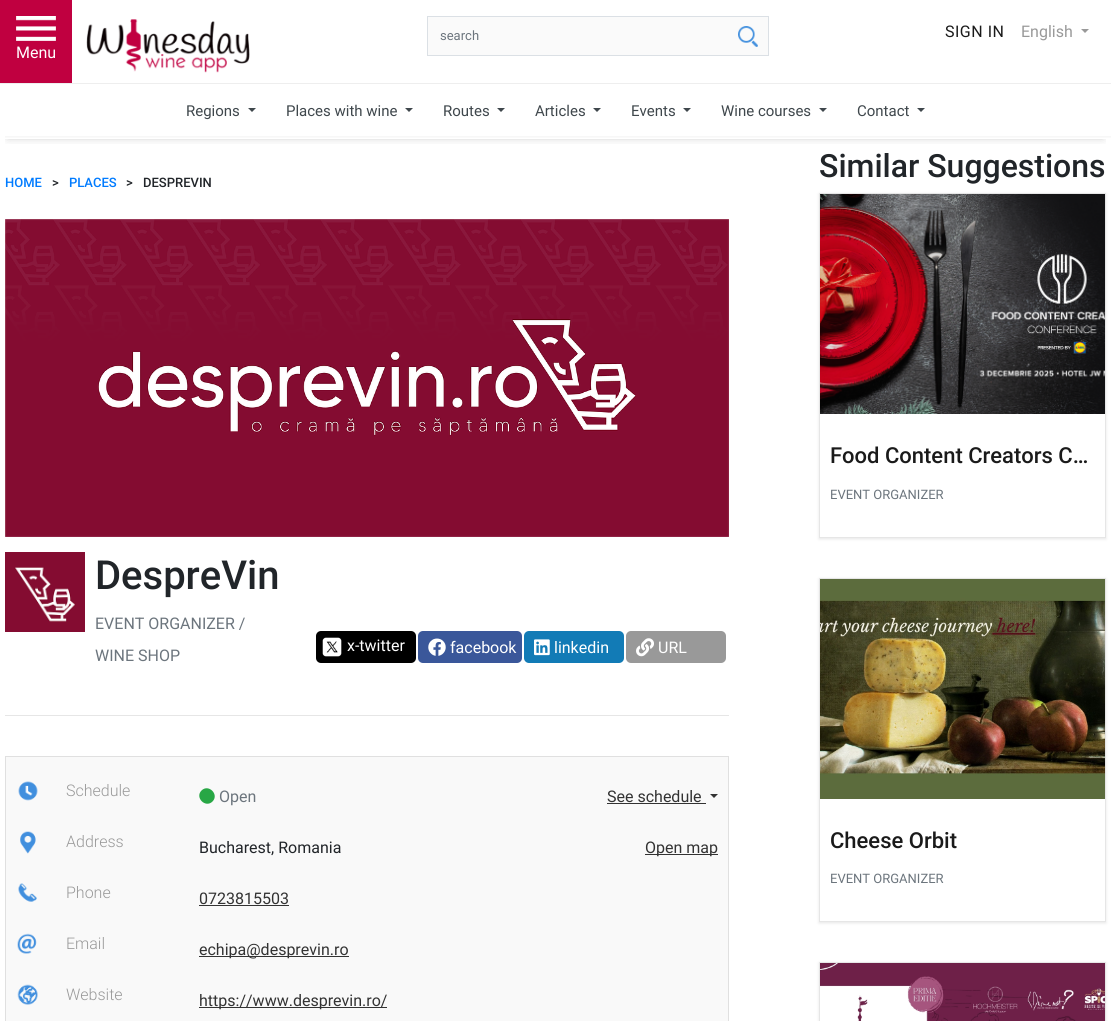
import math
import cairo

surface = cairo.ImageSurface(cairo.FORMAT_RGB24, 1111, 1021)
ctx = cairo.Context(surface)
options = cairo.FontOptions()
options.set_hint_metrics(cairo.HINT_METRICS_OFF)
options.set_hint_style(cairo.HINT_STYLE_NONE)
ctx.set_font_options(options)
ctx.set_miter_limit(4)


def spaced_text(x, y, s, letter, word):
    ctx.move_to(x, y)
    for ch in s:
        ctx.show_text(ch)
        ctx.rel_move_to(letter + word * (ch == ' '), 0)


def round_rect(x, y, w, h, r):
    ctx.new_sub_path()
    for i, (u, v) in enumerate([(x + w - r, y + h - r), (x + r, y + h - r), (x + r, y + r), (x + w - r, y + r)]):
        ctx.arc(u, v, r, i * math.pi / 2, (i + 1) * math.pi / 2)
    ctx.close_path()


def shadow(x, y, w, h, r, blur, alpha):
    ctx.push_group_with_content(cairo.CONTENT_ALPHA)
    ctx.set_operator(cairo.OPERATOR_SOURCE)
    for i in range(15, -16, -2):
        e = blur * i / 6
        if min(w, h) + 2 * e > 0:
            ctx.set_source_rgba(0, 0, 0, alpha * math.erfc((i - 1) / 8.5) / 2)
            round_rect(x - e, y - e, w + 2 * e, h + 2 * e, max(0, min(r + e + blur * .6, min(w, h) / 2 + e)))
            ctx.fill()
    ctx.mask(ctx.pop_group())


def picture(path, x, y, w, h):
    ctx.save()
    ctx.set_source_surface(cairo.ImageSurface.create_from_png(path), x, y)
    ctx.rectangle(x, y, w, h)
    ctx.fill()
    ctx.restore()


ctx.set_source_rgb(1, 1, 1)
ctx.paint()
picture("img1.png", 86, 19, 164, 54)
ctx.set_source_rgb(0.98, 0.98, 0.98)
ctx.rectangle(428, 17, 340, 38)
ctx.fill()
picture("img2.png", 738, 26, 20, 21)
ctx.rectangle(427.5, 16.5, 341, 39)
ctx.set_source_rgb(0.859, 0.878, 0.898)
ctx.set_line_width(1)
ctx.stroke()
ctx.select_font_face("Roboto")
ctx.set_font_size(13)
ctx.set_source_rgb(0.424, 0.459, 0.49)
ctx.move_to(440, 40)
ctx.show_text("search")
ctx.set_font_size(16)
ctx.set_source_rgb(0.102, 0.102, 0.102)
spaced_text(945, 37, "SIGN IN", 0.5, 0)
ctx.set_source_rgb(0.6, 0.6, 0.6)
ctx.move_to(1021, 37)
ctx.show_text("English")
ctx.new_path()
ctx.move_to(1081, 29)
ctx.line_to(1089, 29)
ctx.line_to(1085, 33)
ctx.close_path()
ctx.fill()
ctx.set_source_rgb(0.753, 0, 0.251)
ctx.rectangle(0, 0, 72, 83)
ctx.fill()
picture("img3.png", 16, 16, 40, 25)
ctx.set_source_rgb(1, 1, 1)
ctx.move_to(16, 58)
ctx.show_text("Menu")
ctx.save()
ctx.rectangle(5, 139, 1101, 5)
ctx.clip()
ctx.set_source_rgb(0.067, 0.067, 0.067)
shadow(8, 116, 1095, 20, 0, 5, 0.34)
ctx.restore()
ctx.set_source_rgb(0.933, 0.933, 0.933)
ctx.rectangle(0, 83, 1111, 1)
ctx.fill()
ctx.set_font_size(15)
ctx.set_source_rgb(0.247, 0.278, 0.298)
ctx.move_to(186, 116)
ctx.show_text("Regions")
ctx.new_path()
ctx.move_to(248, 108)
ctx.line_to(256, 108)
ctx.line_to(252, 112)
ctx.close_path()
ctx.fill()
ctx.move_to(286, 116)
ctx.show_text("Places with wine")
ctx.new_path()
ctx.move_to(405, 108)
ctx.line_to(413, 108)
ctx.line_to(409, 112)
ctx.close_path()
ctx.fill()
ctx.move_to(443, 116)
ctx.show_text("Routes")
ctx.new_path()
ctx.move_to(497, 108)
ctx.line_to(505, 108)
ctx.line_to(501, 112)
ctx.close_path()
ctx.fill()
ctx.move_to(535, 116)
ctx.show_text("Articles")
ctx.new_path()
ctx.move_to(593, 108)
ctx.line_to(601, 108)
ctx.line_to(597, 112)
ctx.close_path()
ctx.fill()
ctx.move_to(631, 116)
ctx.show_text("Events")
ctx.new_path()
ctx.move_to(683, 108)
ctx.line_to(691, 108)
ctx.line_to(687, 112)
ctx.close_path()
ctx.fill()
ctx.move_to(721, 116)
ctx.show_text("Wine courses")
ctx.new_path()
ctx.move_to(819, 108)
ctx.line_to(827, 108)
ctx.line_to(823, 112)
ctx.close_path()
ctx.fill()
ctx.move_to(857, 116)
ctx.show_text("Contact")
ctx.new_path()
ctx.move_to(917, 108)
ctx.line_to(925, 108)
ctx.line_to(921, 112)
ctx.close_path()
ctx.fill()
gradient = cairo.LinearGradient(571, 136, 571, 139)
gradient.add_color_stop_rgba(0.39, 0.969, 0.969, 0.969, 1)
gradient.add_color_stop_rgba(0.75, 1, 1, 1, 1)
ctx.set_source(gradient)
ctx.rectangle(5, 136, 1106, 2)
ctx.fill()
ctx.select_font_face("Roboto Medium")
ctx.set_font_size(13)
ctx.set_source_rgb(0, 0.482, 1)
ctx.move_to(5, 187)
ctx.show_text("HOME")
ctx.set_source_rgb(0.129, 0.145, 0.161)
ctx.move_to(52, 187)
ctx.show_text(">")
ctx.set_source_rgb(0, 0.482, 1)
ctx.move_to(69, 187)
ctx.show_text("PLACES")
ctx.set_source_rgb(0.129, 0.145, 0.161)
ctx.move_to(126, 187)
ctx.show_text(">")
ctx.move_to(143, 187)
ctx.show_text("DESPREVIN")
picture("img4.png", 5, 219, 724, 318)
picture("img5.png", 5, 552, 80, 80)
ctx.set_font_size(40)
ctx.move_to(95, 589)
ctx.show_text("DespreVin")
ctx.select_font_face("Roboto")
ctx.set_font_size(16)
ctx.set_source_rgb(0.424, 0.459, 0.49)
ctx.move_to(95, 629)
ctx.show_text("EVENT ORGANIZER /")
ctx.move_to(95, 661)
ctx.show_text("WINE SHOP")
ctx.set_source_rgb(0, 0, 0)
round_rect(316, 631, 100, 32, 5)
ctx.fill()
picture("img6.png", 322, 637, 20, 20)
ctx.set_source_rgb(1, 1, 1)
ctx.move_to(347, 651)
ctx.show_text("x-twitter")
ctx.set_source_rgb(0.227, 0.341, 0.604)
round_rect(418, 631, 104, 32, 5)
ctx.fill()
picture("img7.png", 428, 638, 18, 18)
ctx.set_source_rgb(1, 1, 1)
ctx.move_to(450, 653)
ctx.show_text("facebook")
ctx.set_source_rgb(0.071, 0.482, 0.714)
round_rect(524, 631, 100, 32, 5)
ctx.fill()
picture("img8.png", 534, 639, 16, 17)
ctx.set_source_rgb(1, 1, 1)
ctx.move_to(554, 653)
ctx.show_text("linkedin")
ctx.set_source_rgb(0.6, 0.6, 0.6)
round_rect(626, 631, 100, 32, 5)
ctx.fill()
picture("img9.png", 636, 638, 18, 19)
ctx.set_source_rgb(1, 1, 1)
ctx.move_to(658, 653)
ctx.show_text("URL")
ctx.set_source_rgb(0.902, 0.902, 0.902)
ctx.rectangle(5, 715, 724, 1)
ctx.fill()
ctx.set_source_rgb(0.973, 0.973, 0.973)
ctx.rectangle(5.5, 756.5, 723, 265)
ctx.fill_preserve()
ctx.set_source_rgb(0.878, 0.878, 0.878)
ctx.stroke()
picture("img10.png", 18, 781, 20, 20)
ctx.select_font_face("Roboto Light")
ctx.set_source_rgb(0.6, 0.6, 0.6)
ctx.move_to(66, 796)
ctx.show_text("Schedule")
ctx.set_source_rgb(0.157, 0.655, 0.271)
ctx.new_path()
ctx.move_to(201.5, 790.5)
ctx.curve_to(208.5, 783.5, 219.5, 794.5, 212.5, 801.5)
ctx.curve_to(205.5, 808.5, 194.5, 797.5, 201.5, 790.5)
ctx.close_path()
ctx.fill()
ctx.select_font_face("Roboto")
ctx.set_source_rgb(0.424, 0.459, 0.49)
ctx.move_to(219, 802)
ctx.show_text("Open")
ctx.set_source_rgb(0.2, 0.2, 0.2)
ctx.move_to(607, 802)
ctx.show_text("See schedule")
ctx.rectangle(607, 803, 99, 1)
ctx.fill()
ctx.new_path()
ctx.move_to(710, 794)
ctx.line_to(718, 794)
ctx.line_to(714, 798)
ctx.close_path()
ctx.fill()
picture("img11.png", 20, 831, 16, 23)
ctx.select_font_face("Roboto Light")
ctx.set_source_rgb(0.6, 0.6, 0.6)
ctx.move_to(66, 847)
ctx.show_text("Address")
ctx.select_font_face("Roboto")
ctx.set_source_rgb(0.129, 0.145, 0.161)
ctx.move_to(199, 853)
ctx.show_text("Bucharest, Romania")
ctx.set_source_rgb(0.2, 0.2, 0.2)
ctx.rectangle(645, 854, 73, 1)
ctx.fill()
ctx.move_to(645, 853)
ctx.show_text("Open map")
picture("img12.png", 18, 883, 19, 19)
ctx.select_font_face("Roboto Light")
ctx.set_source_rgb(0.6, 0.6, 0.6)
ctx.move_to(66, 898)
ctx.show_text("Phone")
ctx.select_font_face("Roboto")
ctx.set_source_rgb(0.2, 0.2, 0.2)
ctx.move_to(199, 904)
ctx.show_text("0723815503")
ctx.rectangle(199, 905, 90, 1)
ctx.fill()
picture("img13.png", 17, 933, 20, 21)
ctx.select_font_face("Roboto Light")
ctx.set_source_rgb(0.6, 0.6, 0.6)
ctx.move_to(66, 949)
ctx.show_text("Email")
ctx.set_source_rgb(0.2, 0.2, 0.2)
ctx.rectangle(199, 956, 150, 1)
ctx.fill()
ctx.select_font_face("Roboto")
ctx.move_to(199, 955)
ctx.show_text("echipa@desprevin.ro")
picture("img14.png", 17, 984, 21, 21)
ctx.select_font_face("Roboto Light")
ctx.set_source_rgb(0.6, 0.6, 0.6)
ctx.move_to(66, 1000)
ctx.show_text("Website")
ctx.set_source_rgb(0.2, 0.2, 0.2)
ctx.rectangle(199, 1007, 188, 1)
ctx.fill()
ctx.select_font_face("Roboto")
ctx.move_to(199, 1006)
ctx.show_text("https://www.desprevin.ro/")
ctx.select_font_face("Roboto Medium")
ctx.set_font_size(32)
ctx.set_source_rgb(0.129, 0.145, 0.161)
ctx.move_to(819, 177)
ctx.show_text("Similar Suggestions")
ctx.save()
ctx.set_fill_rule(cairo.FILL_RULE_EVEN_ODD)
ctx.new_path()
ctx.move_to(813, 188)
ctx.line_to(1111, 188)
ctx.line_to(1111, 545)
ctx.line_to(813, 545)
ctx.close_path()
ctx.move_to(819, 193)
ctx.line_to(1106, 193)
ctx.line_to(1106, 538)
ctx.line_to(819, 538)
ctx.close_path()
ctx.clip()
ctx.set_source_rgb(0.902, 0.902, 0.902)
shadow(819, 194, 287, 345, 0, 1.5, 1)
ctx.restore()
ctx.rectangle(819.5, 193.5, 286, 344)
ctx.set_source_rgb(0.902, 0.902, 0.902)
ctx.stroke()
picture("img15.png", 820, 194, 285, 220)
ctx.set_font_size(22)
ctx.set_source_rgb(0.102, 0.102, 0.102)
ctx.move_to(830, 463)
ctx.show_text("Food Content Creators C…")
ctx.select_font_face("Roboto")
ctx.set_font_size(13)
ctx.set_source_rgb(0.424, 0.459, 0.49)
ctx.move_to(830, 499)
ctx.show_text("EVENT ORGANIZER")
ctx.save()
ctx.set_fill_rule(cairo.FILL_RULE_EVEN_ODD)
ctx.new_path()
ctx.move_to(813, 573)
ctx.line_to(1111, 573)
ctx.line_to(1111, 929)
ctx.line_to(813, 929)
ctx.close_path()
ctx.move_to(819, 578)
ctx.line_to(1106, 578)
ctx.line_to(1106, 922)
ctx.line_to(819, 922)
ctx.close_path()
ctx.clip()
ctx.set_source_rgb(0.902, 0.902, 0.902)
shadow(819, 579, 287, 344, 0, 1.5, 1)
ctx.restore()
ctx.rectangle(819.5, 578.5, 286, 343)
ctx.set_source_rgb(0.902, 0.902, 0.902)
ctx.stroke()
picture("img16.png", 820, 579, 285, 220)
ctx.select_font_face("Roboto Medium")
ctx.set_font_size(22)
ctx.set_source_rgb(0.102, 0.102, 0.102)
ctx.move_to(830, 848)
ctx.show_text("Cheese Orbit")
ctx.select_font_face("Roboto")
ctx.set_font_size(13)
ctx.set_source_rgb(0.424, 0.459, 0.49)
ctx.move_to(830, 883)
ctx.show_text("EVENT ORGANIZER")
ctx.set_source_rgb(0.902, 0.902, 0.902)
shadow(819, 963, 287, 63, 0, 1.5, 1)
ctx.rectangle(819.5, 962.5, 286, 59)
ctx.set_source_rgb(0.902, 0.902, 0.902)
ctx.stroke()
picture("img17.png", 820, 963, 285, 58)
surface.write_to_png("page.png")
